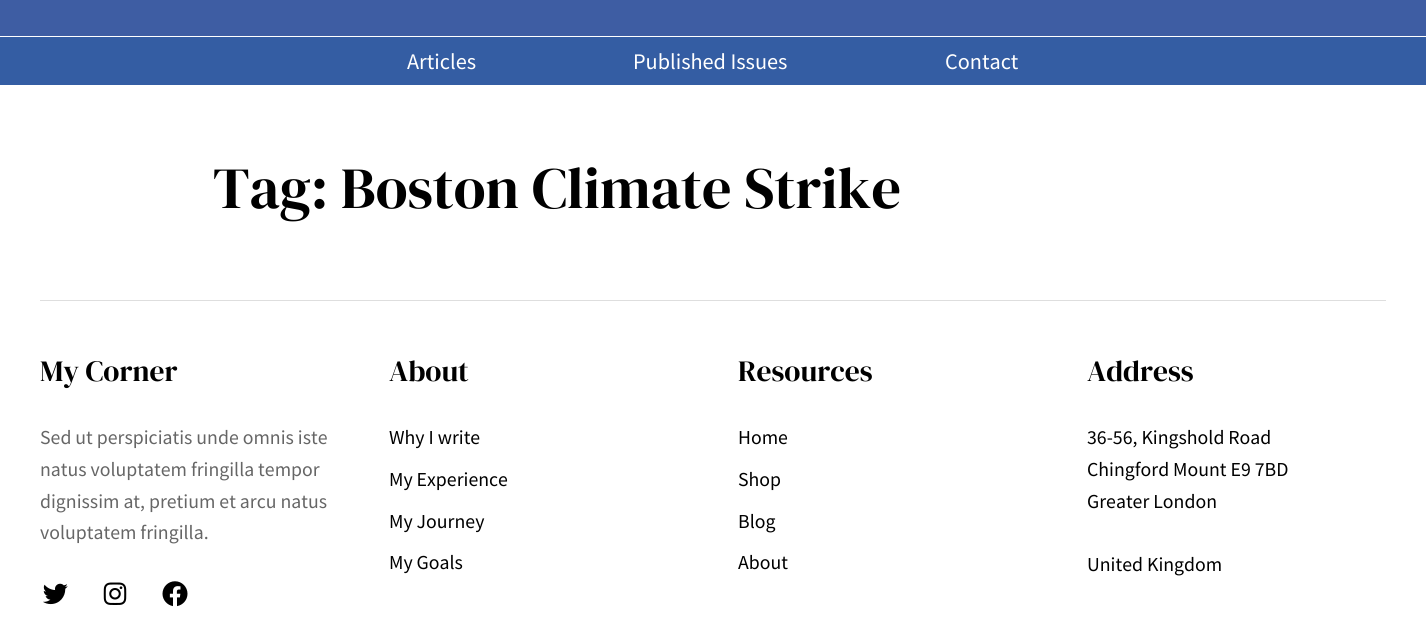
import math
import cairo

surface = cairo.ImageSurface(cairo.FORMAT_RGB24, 1426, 633)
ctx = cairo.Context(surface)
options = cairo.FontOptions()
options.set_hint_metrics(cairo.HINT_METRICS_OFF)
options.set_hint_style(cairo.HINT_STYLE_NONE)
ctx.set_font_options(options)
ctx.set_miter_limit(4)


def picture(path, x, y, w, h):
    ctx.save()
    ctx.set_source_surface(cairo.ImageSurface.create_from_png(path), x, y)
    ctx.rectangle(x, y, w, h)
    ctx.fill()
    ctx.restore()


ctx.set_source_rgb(1, 1, 1)
ctx.paint()
ctx.set_source_rgb(0.243, 0.365, 0.639)
ctx.rectangle(0, 0, 1426, 36)
ctx.fill()
ctx.set_source_rgb(0.204, 0.365, 0.639)
ctx.rectangle(0, 37, 1426, 48)
ctx.fill()
ctx.select_font_face("Source Sans Pro")
ctx.set_font_size(22.25)
ctx.set_source_rgb(1, 1, 1)
ctx.move_to(407, 69)
ctx.show_text("Articles")
ctx.move_to(633, 69)
ctx.show_text("Published Issues")
ctx.move_to(945, 69)
ctx.show_text("Contact")
ctx.select_font_face("DM Serif Display")
ctx.set_font_size(58.25)
ctx.set_source_rgb(0, 0, 0)
ctx.move_to(213, 208)
ctx.show_text("Tag: Boston Climate Strike")
ctx.set_source_rgb(0.871, 0.871, 0.871)
ctx.rectangle(40, 300, 1346, 1)
ctx.fill()
ctx.set_font_size(29.5)
ctx.set_source_rgb(0, 0, 0)
ctx.move_to(40, 381)
ctx.show_text("My Corner")
ctx.select_font_face("Source Sans Pro")
ctx.set_font_size(19.8)
ctx.set_source_rgb(0.4, 0.4, 0.4)
ctx.move_to(40, 444)
ctx.show_text("Sed ut perspiciatis unde omnis iste")
ctx.move_to(40, 476)
ctx.show_text("natus voluptatem fringilla tempor")
ctx.move_to(40, 508)
ctx.show_text("dignissim at, pretium et arcu natus")
ctx.move_to(40, 539)
ctx.show_text("voluptatem fringilla.")
picture("img1.png", 43, 583, 25, 22)
picture("img2.png", 103, 582, 24, 23)
picture("img3.png", 162, 581, 26, 26)
ctx.select_font_face("DM Serif Display")
ctx.set_font_size(29.5)
ctx.set_source_rgb(0, 0, 0)
ctx.move_to(389, 381)
ctx.show_text("About")
ctx.select_font_face("Source Sans Pro")
ctx.set_font_size(19.8)
ctx.move_to(389, 444)
ctx.show_text("Why I write")
ctx.move_to(389, 486)
ctx.show_text("My Experience")
ctx.move_to(389, 528)
ctx.show_text("My Journey")
ctx.move_to(389, 569)
ctx.show_text("My Goals")
ctx.select_font_face("DM Serif Display")
ctx.set_font_size(29.5)
ctx.move_to(738, 381)
ctx.show_text("Resources")
ctx.select_font_face("Source Sans Pro")
ctx.set_font_size(19.8)
ctx.move_to(738, 444)
ctx.show_text("Home")
ctx.move_to(738, 486)
ctx.show_text("Shop")
ctx.move_to(738, 528)
ctx.show_text("Blog")
ctx.move_to(738, 569)
ctx.show_text("About")
ctx.select_font_face("DM Serif Display")
ctx.set_font_size(29.5)
ctx.move_to(1087, 381)
ctx.show_text("Address")
ctx.select_font_face("Source Sans Pro")
ctx.set_font_size(19.8)
ctx.move_to(1087, 444)
ctx.show_text("36-56, Kingshold Road")
ctx.move_to(1087, 476)
ctx.show_text("Chingford Mount E9 7BD")
ctx.move_to(1087, 508)
ctx.show_text("Greater London")
ctx.move_to(1087, 571)
ctx.show_text("United Kingdom")
surface.write_to_png("page.png")
